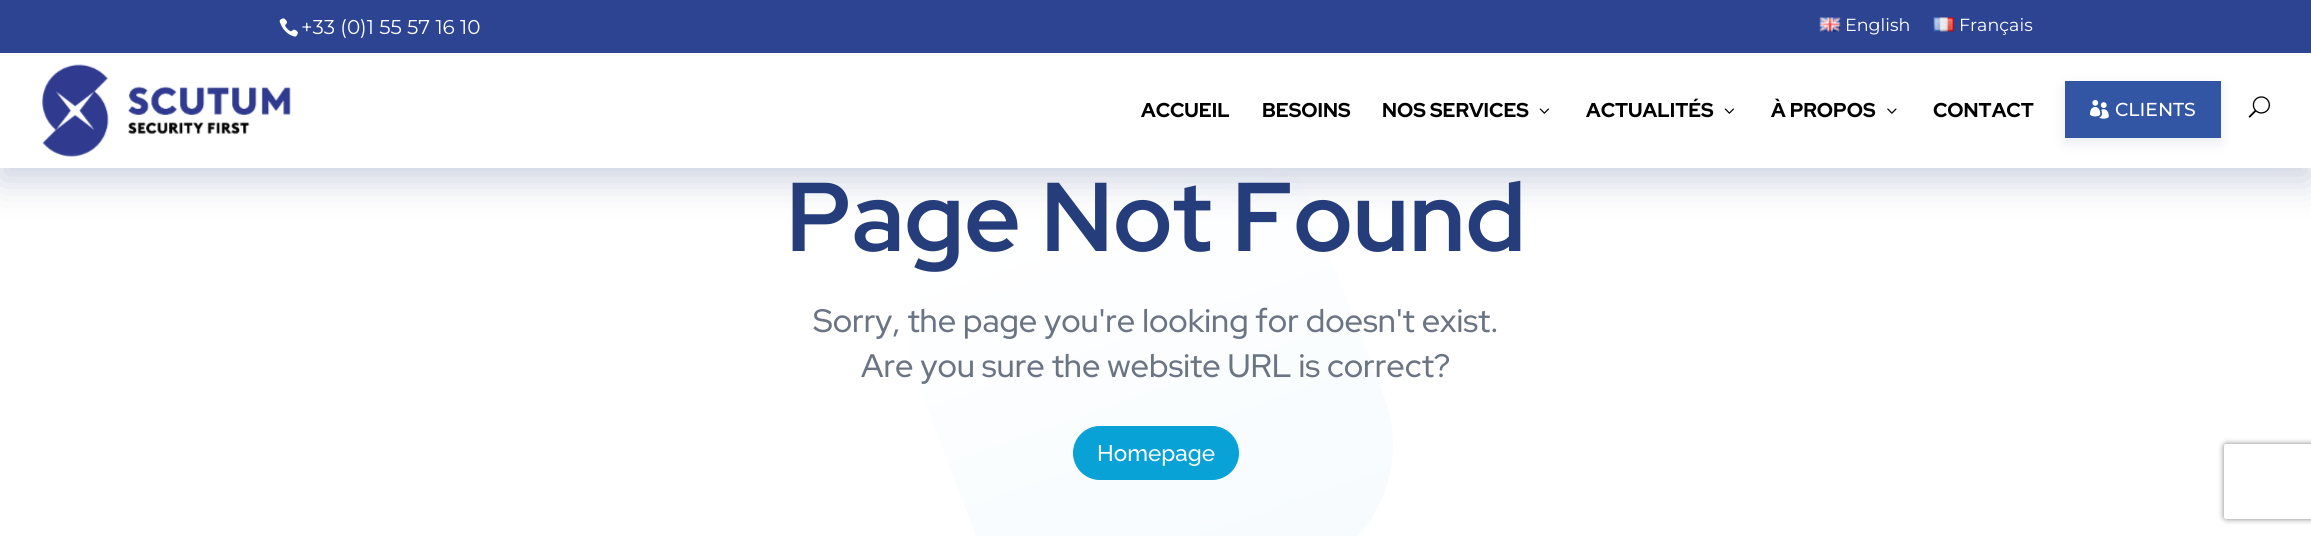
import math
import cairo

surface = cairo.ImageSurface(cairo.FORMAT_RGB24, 2311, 536)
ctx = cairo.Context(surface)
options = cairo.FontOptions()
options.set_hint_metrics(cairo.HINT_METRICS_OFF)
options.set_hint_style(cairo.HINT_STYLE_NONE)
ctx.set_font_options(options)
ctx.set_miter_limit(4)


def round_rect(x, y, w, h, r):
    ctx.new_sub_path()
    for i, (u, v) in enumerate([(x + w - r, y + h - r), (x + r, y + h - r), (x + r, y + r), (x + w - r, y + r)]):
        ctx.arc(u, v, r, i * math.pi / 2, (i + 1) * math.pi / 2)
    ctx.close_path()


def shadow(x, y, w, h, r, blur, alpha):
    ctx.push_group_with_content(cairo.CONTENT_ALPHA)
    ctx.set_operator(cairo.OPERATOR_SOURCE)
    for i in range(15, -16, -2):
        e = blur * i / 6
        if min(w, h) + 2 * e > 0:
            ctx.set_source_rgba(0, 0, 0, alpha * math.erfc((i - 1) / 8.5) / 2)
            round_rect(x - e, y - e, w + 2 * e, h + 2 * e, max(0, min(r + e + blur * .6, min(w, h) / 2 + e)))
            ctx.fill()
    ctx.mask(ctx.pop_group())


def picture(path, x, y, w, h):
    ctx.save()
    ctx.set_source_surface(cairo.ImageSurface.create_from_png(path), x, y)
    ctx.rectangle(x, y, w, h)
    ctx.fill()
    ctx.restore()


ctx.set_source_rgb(1, 1, 1)
ctx.paint()
ctx.save()
ctx.rectangle(909, 168, 494, 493)
ctx.clip()
gradient = cairo.LinearGradient(1222, 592, 1079, 187)
gradient.add_color_stop_rgba(0, 0.965, 0.984, 0.996, 1)
gradient.add_color_stop_rgba(1, 1, 1, 1, 1)
ctx.set_source(gradient)
ctx.new_path()
ctx.move_to(1003, 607)
ctx.line_to(903, 344)
ctx.curve_to(888, 305, 907, 262, 946, 248)
ctx.line_to(1209, 147)
ctx.curve_to(1248, 132, 1291, 151, 1305, 190)
ctx.line_to(1384, 396)
ctx.curve_to(1411, 466, 1376, 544, 1307, 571)
ctx.line_to(1100, 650)
ctx.curve_to(1061, 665, 1018, 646, 1003, 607)
ctx.close_path()
ctx.fill()
ctx.restore()
ctx.set_source_rgb(0.149, 0.239, 0.482)
shadow(0, 65, 2311, 115, 0, 19, 0.24)
ctx.set_source_rgb(0.176, 0.267, 0.576)
ctx.rectangle(0, 0, 2311, 53)
ctx.fill()
picture("img1.png", 279, 18, 19, 19)
ctx.select_font_face("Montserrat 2 Thin")
ctx.set_font_size(20)
ctx.set_source_rgb(1, 1, 1)
ctx.move_to(301, 34)
ctx.show_text("+33 (0)1 55 57 16 10")
picture("img2.png", 1819, 17, 22, 15)
ctx.set_font_size(17.5)
ctx.move_to(1845, 31)
ctx.show_text("English")
picture("img3.png", 1933, 17, 21, 15)
ctx.move_to(1959, 31)
ctx.show_text("Français")
ctx.rectangle(0, 53, 2311, 115)
ctx.fill()
picture("img4.png", 42, 64, 249, 93)
ctx.select_font_face("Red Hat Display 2", cairo.FONT_SLANT_NORMAL, cairo.FONT_WEIGHT_BOLD)
ctx.set_font_size(20)
ctx.set_source_rgb(0, 0, 0)
ctx.move_to(1141, 117)
ctx.show_text("ACCUEIL")
ctx.move_to(1262, 117)
ctx.show_text("BESOINS")
ctx.move_to(1382, 117)
ctx.show_text("NOS SERVICES")
picture("img5.png", 1539, 108, 10, 6)
ctx.move_to(1586, 117)
ctx.show_text("ACTUALITÉS")
picture("img5.png", 1724, 108, 10, 6)
ctx.move_to(1771, 117)
ctx.show_text("À PROPOS")
picture("img6.png", 1887, 108, 10, 6)
ctx.move_to(1933, 117)
ctx.show_text("CONTACT")
ctx.set_source_rgb(0.149, 0.239, 0.482)
shadow(2065, 86, 156, 57, 0, 6, 0.1)
ctx.set_source_rgb(0.196, 0.333, 0.643)
ctx.rectangle(2065, 81, 156, 57)
ctx.fill()
picture("img7.png", 2090, 99, 19, 20)
ctx.select_font_face("Montserrat Thin")
ctx.set_font_size(18.75)
ctx.set_source_rgb(1, 1, 1)
ctx.move_to(2115, 116)
ctx.show_text("CLIENTS")
picture("img8.png", 2248, 96, 22, 22)
ctx.select_font_face("Red Hat Display", cairo.FONT_SLANT_NORMAL, cairo.FONT_WEIGHT_BOLD)
ctx.set_font_size(97.5)
ctx.set_source_rgb(0.149, 0.239, 0.482)
ctx.move_to(786, 251)
ctx.show_text("Page Not Found")
ctx.select_font_face("Red Hat Display Medium")
ctx.set_font_size(32.5)
ctx.set_source_rgb(0.416, 0.455, 0.514)
ctx.move_to(813, 332)
ctx.show_text("Sorry, the page you're looking for doesn't exist.")
ctx.move_to(861, 377)
ctx.show_text("Are you sure the website URL is correct?")
ctx.set_source_rgb(0.035, 0.635, 0.839)
round_rect(1073.5, 426.5, 165, 53, 26.5)
ctx.fill_preserve()
ctx.set_line_width(1)
ctx.stroke()
ctx.select_font_face("Raleway Thin")
ctx.set_font_size(22.5)
ctx.set_source_rgb(1, 1, 1)
ctx.move_to(1097, 461)
ctx.show_text("Homepage")
ctx.save()
ctx.set_fill_rule(cairo.FILL_RULE_EVEN_ODD)
ctx.new_path()
ctx.move_to(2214, 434)
ctx.line_to(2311, 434)
ctx.line_to(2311, 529)
ctx.line_to(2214, 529)
ctx.close_path()
ctx.move_to(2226.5, 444)
ctx.line_to(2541.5, 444)
ctx.curve_to(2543, 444, 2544, 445, 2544, 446.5)
ctx.line_to(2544, 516.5)
ctx.curve_to(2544, 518, 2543, 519, 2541.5, 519)
ctx.line_to(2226.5, 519)
ctx.curve_to(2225, 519, 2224, 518, 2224, 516.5)
ctx.line_to(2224, 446.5)
ctx.curve_to(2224, 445, 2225, 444, 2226.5, 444)
ctx.close_path()
ctx.clip()
ctx.set_source_rgb(0.502, 0.502, 0.502)
shadow(2224, 444, 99, 75, 2.5, 3, 1)
ctx.restore()
surface.write_to_png("page.png")
